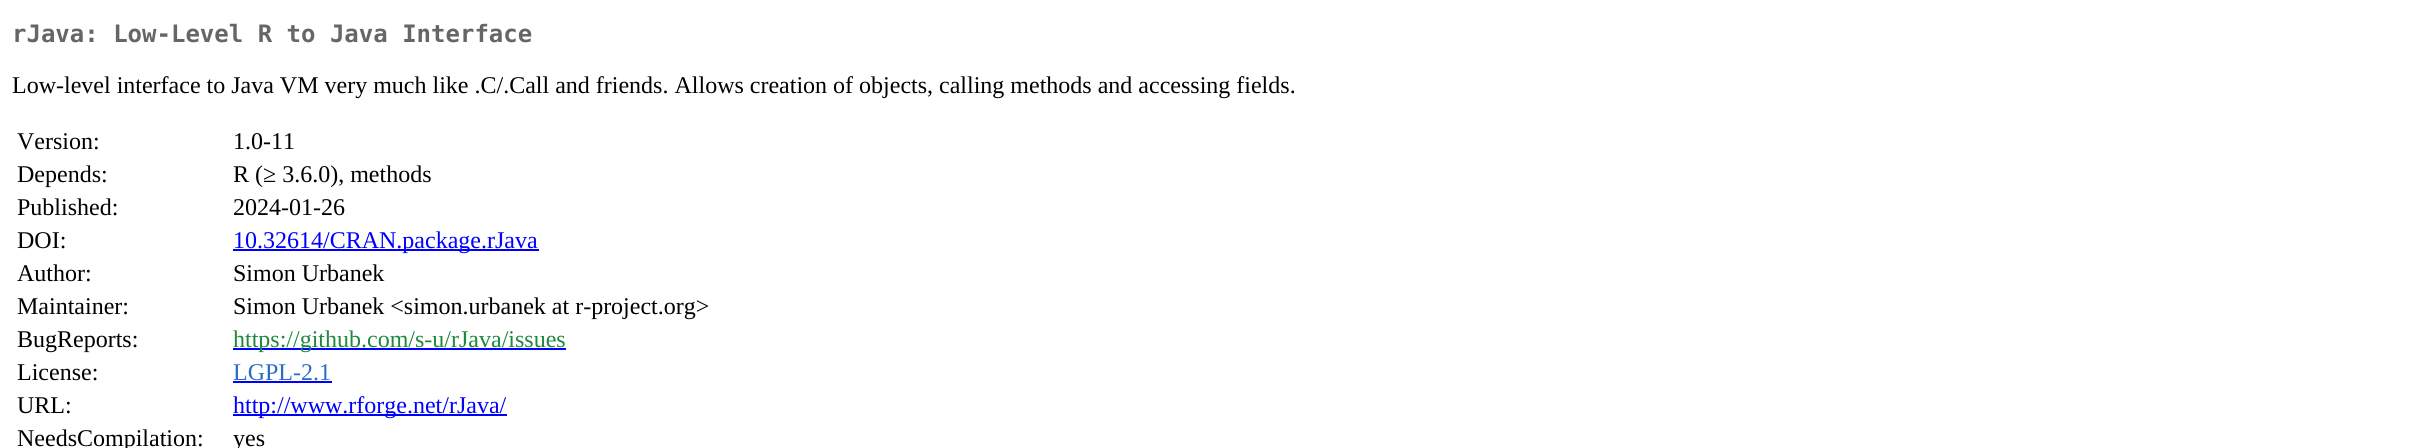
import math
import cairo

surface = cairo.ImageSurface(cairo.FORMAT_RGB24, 2422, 448)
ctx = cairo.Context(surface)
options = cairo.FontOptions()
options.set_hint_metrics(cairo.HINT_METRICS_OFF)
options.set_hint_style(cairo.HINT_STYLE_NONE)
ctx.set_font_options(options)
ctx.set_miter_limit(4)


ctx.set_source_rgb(1, 1, 1)
ctx.paint()
ctx.select_font_face("DejaVu Sans Mono", cairo.FONT_SLANT_NORMAL, cairo.FONT_WEIGHT_BOLD)
ctx.set_font_size(24)
ctx.set_source_rgb(0.4, 0.4, 0.4)
ctx.move_to(12, 42)
ctx.show_text("rJava: Low-Level R to Java Interface")
ctx.select_font_face("Liberation Serif")
ctx.set_source_rgb(0, 0, 0)
ctx.move_to(12, 93)
ctx.show_text("Low-level interface to Java VM very much like .C/.Call and friends. Allows creation of objects, calling methods and accessing fields.")
ctx.move_to(17, 149)
ctx.show_text("Version:")
ctx.move_to(233, 149)
ctx.show_text("1.0-11")
ctx.move_to(17, 182)
ctx.show_text("Depends:")
ctx.move_to(233, 182)
ctx.show_text("R (≥ 3.6.0), methods")
ctx.move_to(17, 215)
ctx.show_text("Published:")
ctx.move_to(233, 215)
ctx.show_text("2024-01-26")
ctx.move_to(17, 248)
ctx.show_text("DOI:")
ctx.set_source_rgb(0, 0, 1)
ctx.rectangle(233, 249, 306, 2)
ctx.fill()
ctx.move_to(233, 248)
ctx.show_text("10.32614/CRAN.package.rJava")
ctx.set_source_rgb(0, 0, 0)
ctx.move_to(17, 281)
ctx.show_text("Author:")
ctx.move_to(233, 281)
ctx.show_text("Simon Urbanek")
ctx.move_to(17, 314)
ctx.show_text("Maintainer:")
ctx.move_to(233, 314)
ctx.show_text("Simon Urbanek <simon.urbanek at r-project.org>")
ctx.move_to(17, 347)
ctx.show_text("BugReports:")
ctx.set_source_rgb(0, 0, 1)
ctx.rectangle(233, 348, 333, 2)
ctx.fill()
ctx.set_source_rgb(0.122, 0.533, 0.239)
ctx.move_to(233, 347)
ctx.show_text("https://github.com/s-u/rJava/issues")
ctx.set_source_rgb(0, 0, 0)
ctx.move_to(17, 380)
ctx.show_text("License:")
ctx.set_source_rgb(0.153, 0.427, 0.765)
ctx.move_to(233, 380)
ctx.show_text("LGPL-2.1")
ctx.set_source_rgb(0, 0, 1)
ctx.rectangle(233, 381, 99, 2)
ctx.fill()
ctx.set_source_rgb(0, 0, 0)
ctx.move_to(17, 413)
ctx.show_text("URL:")
ctx.set_source_rgb(0, 0, 1)
ctx.rectangle(233, 414, 274, 2)
ctx.fill()
ctx.move_to(233, 413)
ctx.show_text("http://www.rforge.net/rJava/")
ctx.set_source_rgb(0, 0, 0)
ctx.move_to(17, 446)
ctx.show_text("NeedsCompilation:")
ctx.move_to(233, 446)
ctx.show_text("yes")
surface.write_to_png("page.png")
